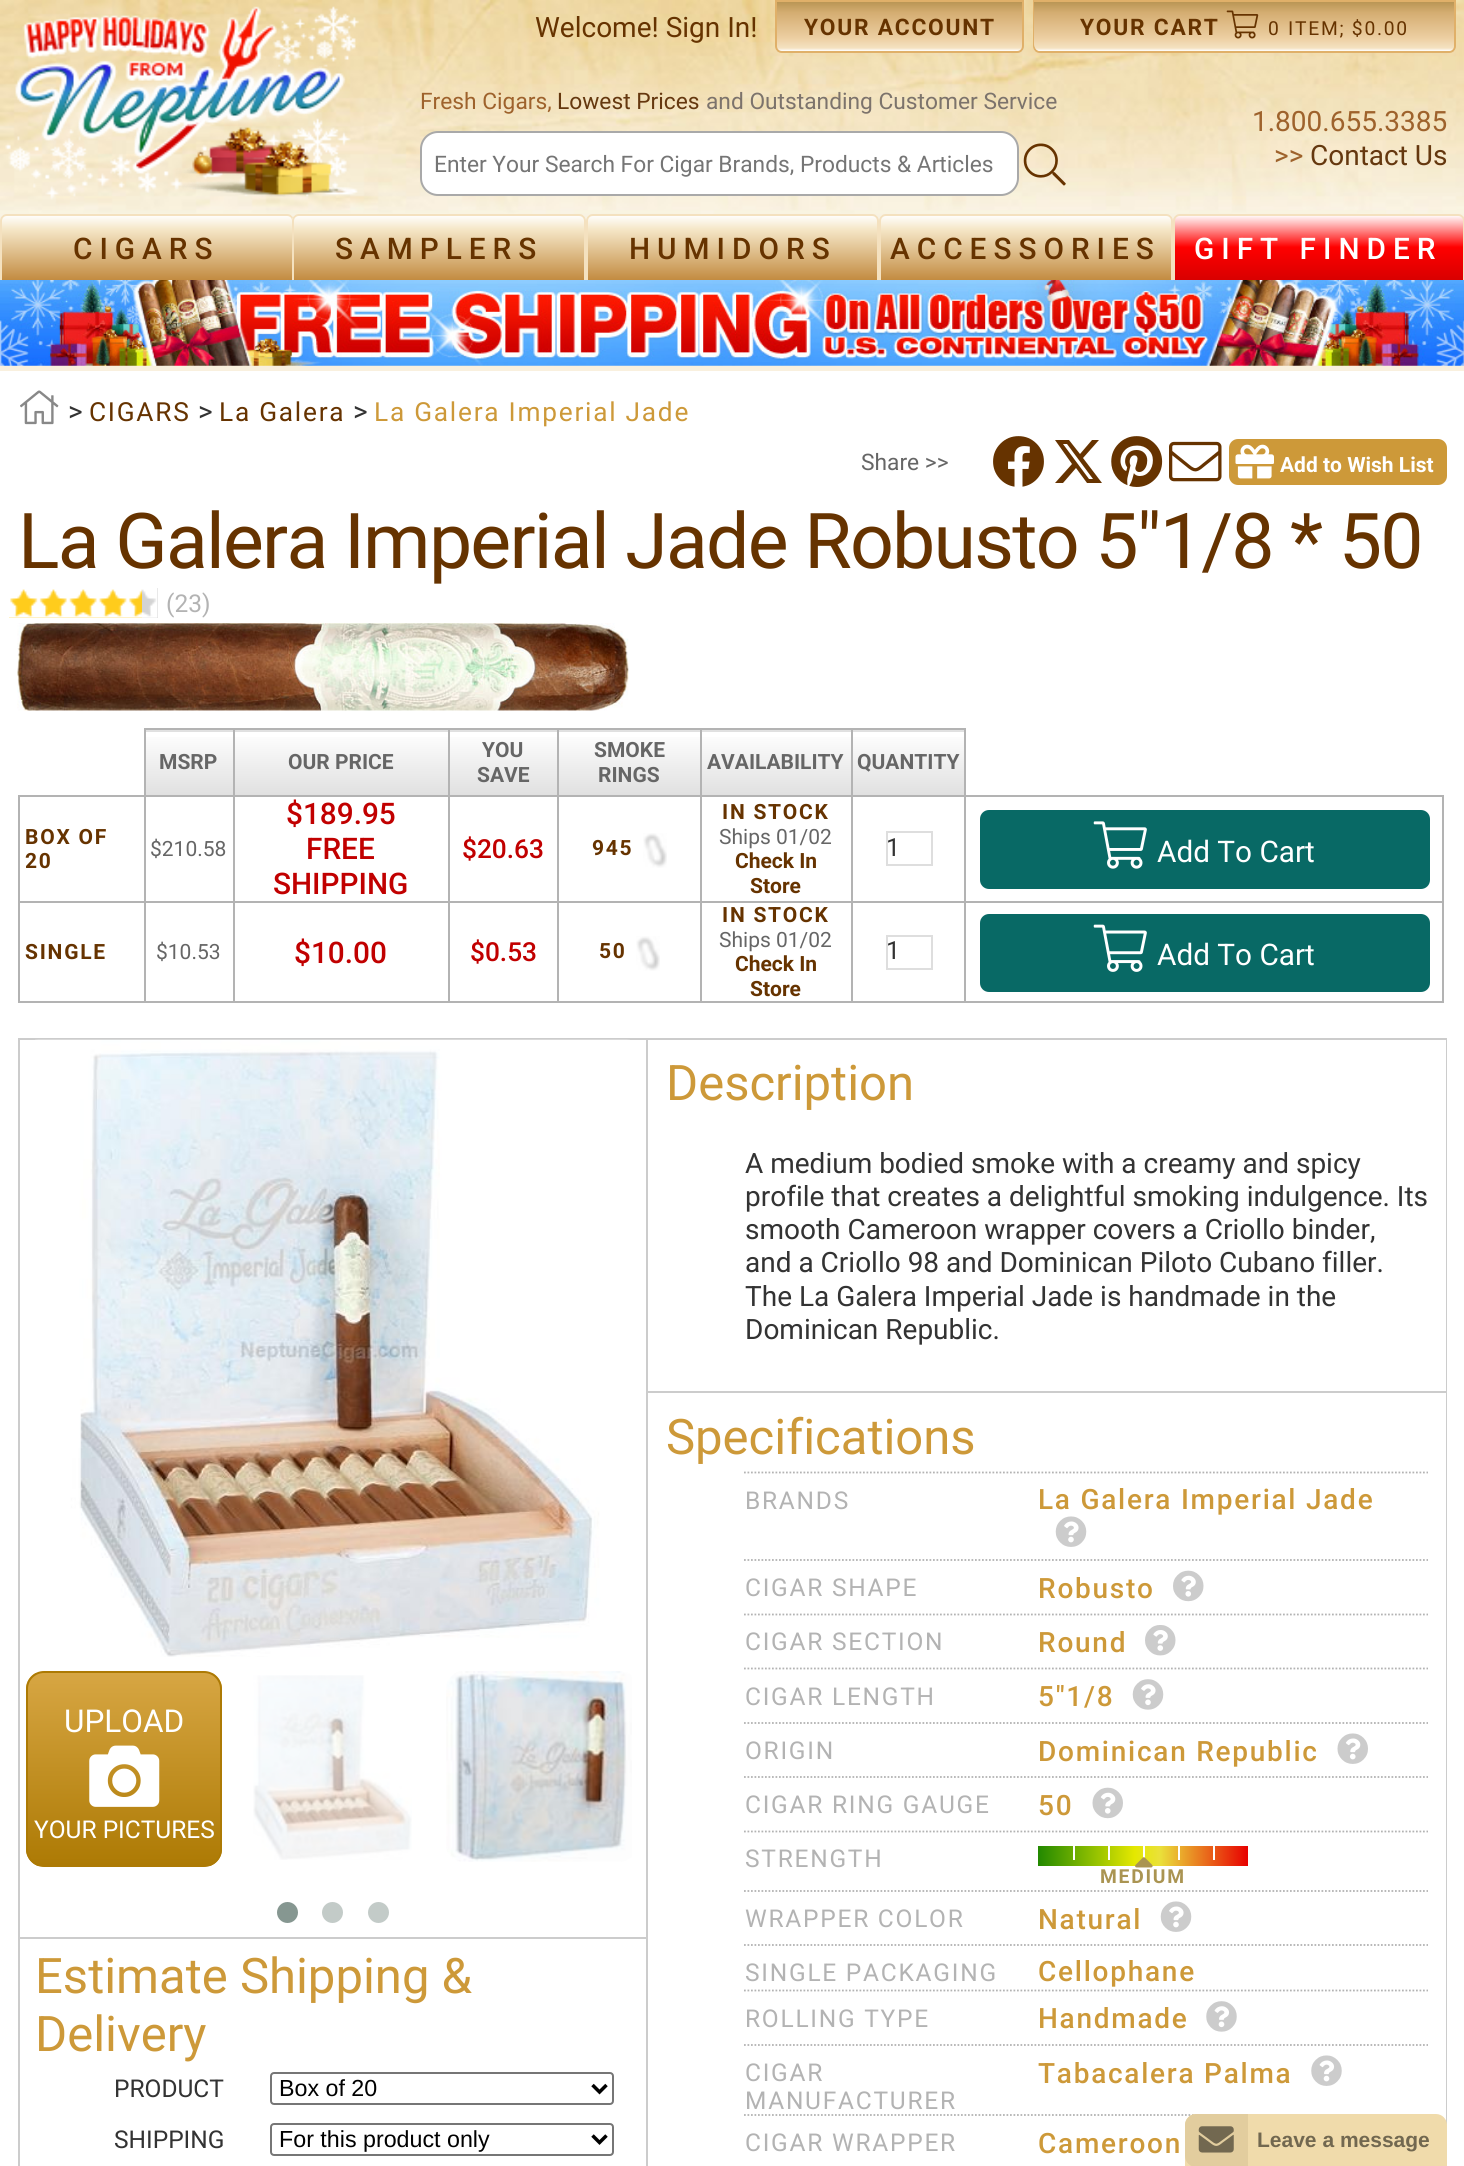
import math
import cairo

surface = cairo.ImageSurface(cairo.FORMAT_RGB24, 1464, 2166)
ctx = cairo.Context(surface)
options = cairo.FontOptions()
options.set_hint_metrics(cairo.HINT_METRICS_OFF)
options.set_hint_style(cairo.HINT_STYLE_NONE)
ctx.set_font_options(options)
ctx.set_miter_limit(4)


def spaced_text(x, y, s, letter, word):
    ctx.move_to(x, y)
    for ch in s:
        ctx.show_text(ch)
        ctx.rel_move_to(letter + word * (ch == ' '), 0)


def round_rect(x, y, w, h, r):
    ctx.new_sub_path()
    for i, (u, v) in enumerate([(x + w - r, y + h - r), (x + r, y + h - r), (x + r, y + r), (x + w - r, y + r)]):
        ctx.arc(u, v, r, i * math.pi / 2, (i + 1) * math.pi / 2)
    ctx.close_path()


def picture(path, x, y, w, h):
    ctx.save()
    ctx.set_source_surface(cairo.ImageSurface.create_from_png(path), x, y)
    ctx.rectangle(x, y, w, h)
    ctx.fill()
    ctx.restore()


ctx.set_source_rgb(1, 1, 1)
ctx.paint()
picture("img1.png", 0, 0, 1464, 221)
picture("img2.png", 5, 6, 354, 194)
ctx.select_font_face("Roboto")
ctx.set_font_size(28)
ctx.set_source_rgb(0.4, 0.2, 0)
ctx.move_to(535, 37)
ctx.show_text("Welcome! Sign In!")
ctx.save()
ctx.new_path()
ctx.move_to(775, 0)
ctx.line_to(1024, 0)
ctx.line_to(1024, 46)
ctx.curve_to(1024, 50, 1021, 53, 1017, 53)
ctx.line_to(782, 53)
ctx.curve_to(778, 53, 775, 50, 775, 46)
ctx.close_path()
ctx.clip()
gradient = cairo.LinearGradient(900, 1.7, 900, 51)
gradient.add_color_stop_rgba(0, 0.725, 0.584, 0.329, 1)
gradient.add_color_stop_rgba(0.22, 0.831, 0.678, 0.443, 1)
gradient.add_color_stop_rgba(0.74, 0.929, 0.812, 0.635, 1)
gradient.add_color_stop_rgba(0.94, 0.957, 0.886, 0.757, 1)
gradient.add_color_stop_rgba(1, 1, 1, 1, 1)
ctx.set_source(gradient)
ctx.rectangle(775, 2, 249, 49)
ctx.fill()
ctx.restore()
ctx.new_path()
ctx.move_to(776, 1)
ctx.line_to(1023, 1)
ctx.line_to(1023, 46)
ctx.curve_to(1023, 49.5, 1020.5, 52, 1017, 52)
ctx.line_to(782, 52)
ctx.curve_to(778.5, 52, 776, 49.5, 776, 46)
ctx.close_path()
ctx.set_source_rgb(0.878, 0.69, 0.412)
ctx.stroke()
ctx.select_font_face("Roboto", cairo.FONT_SLANT_NORMAL, cairo.FONT_WEIGHT_BOLD)
ctx.set_font_size(22.75)
ctx.set_source_rgb(0.4, 0.2, 0)
spaced_text(804, 35, "YOUR ACCOUNT", 1.75, 0)
ctx.save()
ctx.new_path()
ctx.move_to(1033, 0)
ctx.line_to(1456, 0)
ctx.line_to(1456, 46)
ctx.curve_to(1456, 50, 1453, 53, 1449, 53)
ctx.line_to(1040, 53)
ctx.curve_to(1036, 53, 1033, 50, 1033, 46)
ctx.close_path()
ctx.clip()
gradient = cairo.LinearGradient(1244, 1.7, 1244, 51)
gradient.add_color_stop_rgba(0, 0.725, 0.584, 0.329, 1)
gradient.add_color_stop_rgba(0.22, 0.831, 0.678, 0.443, 1)
gradient.add_color_stop_rgba(0.74, 0.929, 0.812, 0.635, 1)
gradient.add_color_stop_rgba(0.94, 0.957, 0.886, 0.757, 1)
gradient.add_color_stop_rgba(1, 1, 1, 1, 1)
ctx.set_source(gradient)
ctx.rectangle(1033, 44, 423, 7)
ctx.fill()
ctx.restore()
ctx.new_path()
ctx.move_to(1034, 1)
ctx.line_to(1455, 1)
ctx.line_to(1455, 46)
ctx.curve_to(1455, 49.5, 1452.5, 52, 1449, 52)
ctx.line_to(1040, 52)
ctx.curve_to(1036.5, 52, 1034, 49.5, 1034, 46)
ctx.close_path()
ctx.set_source_rgb(0.878, 0.69, 0.412)
ctx.stroke()
gradient = cairo.LinearGradient(1244, 1.7, 1244, 51)
gradient.add_color_stop_rgba(0, 0.725, 0.584, 0.329, 1)
gradient.add_color_stop_rgba(0.22, 0.831, 0.678, 0.443, 1)
gradient.add_color_stop_rgba(0.74, 0.929, 0.812, 0.635, 1)
gradient.add_color_stop_rgba(0.94, 0.957, 0.886, 0.757, 1)
gradient.add_color_stop_rgba(1, 1, 1, 1, 1)
ctx.set_source(gradient)
ctx.new_path()
ctx.move_to(1034, 2)
ctx.line_to(1454, 2)
ctx.line_to(1454, 44)
ctx.curve_to(1454, 48, 1451, 51, 1447, 51)
ctx.line_to(1041, 51)
ctx.curve_to(1037, 51, 1034, 48, 1034, 44)
ctx.close_path()
ctx.fill()
ctx.set_source_rgb(0.4, 0.2, 0)
spaced_text(1080, 35, "YOUR CART", 1.75, 0)
picture("img3.png", 1226, 10, 33, 29)
ctx.select_font_face("Roboto")
ctx.set_font_size(19.25)
spaced_text(1268, 35, "0", 1.75, 0)
spaced_text(1288, 35, "ITEM; $0.00", 1.75, 0)
ctx.set_font_size(22.75)
ctx.set_source_rgb(0.62, 0.384, 0.173)
ctx.move_to(420, 109)
ctx.show_text("Fresh Cigars,")
ctx.set_source_rgb(0.396, 0.22, 0.059)
ctx.move_to(557, 109)
ctx.show_text("Lowest Prices")
ctx.set_source_rgb(0.486, 0.451, 0.424)
ctx.move_to(706, 109)
ctx.show_text("and Outstanding Customer Service")
ctx.set_source_rgb(1, 1, 1)
round_rect(421, 132, 597, 63, 17)
ctx.fill_preserve()
ctx.set_source_rgb(0.663, 0.663, 0.663)
ctx.stroke()
ctx.set_source_rgb(0.459, 0.459, 0.459)
ctx.move_to(434, 172)
ctx.show_text("Enter Your Search For Cigar Brands, Products & Articles")
picture("img4.png", 1023, 143, 43, 43)
ctx.set_font_size(28)
ctx.set_source_rgb(0.62, 0.384, 0.173)
ctx.move_to(1252, 131)
ctx.show_text("1.800.655.3385")
ctx.move_to(1274, 165)
ctx.show_text(">>")
ctx.set_source_rgb(0.396, 0.22, 0.059)
ctx.move_to(1310, 165)
ctx.show_text("Contact Us")
ctx.save()
ctx.new_path()
ctx.move_to(7, 214)
ctx.line_to(287, 214)
ctx.curve_to(291, 214, 294, 217, 294, 221)
ctx.line_to(294, 284)
ctx.line_to(0, 284)
ctx.line_to(0, 221)
ctx.curve_to(0, 217, 3, 214, 7, 214)
ctx.close_path()
ctx.clip()
gradient = cairo.LinearGradient(147, 215, 147, 282)
gradient.add_color_stop_rgba(0, 1, 1, 1, 1)
gradient.add_color_stop_rgba(0.21, 0.961, 0.906, 0.784, 1)
gradient.add_color_stop_rgba(0.98, 0.761, 0.541, 0.247, 1)
gradient.add_color_stop_rgba(1, 0.706, 0.463, 0.141, 1)
ctx.set_source(gradient)
ctx.rectangle(0, 215, 294, 65)
ctx.fill()
ctx.restore()
ctx.new_path()
ctx.move_to(7, 215)
ctx.line_to(287, 215)
ctx.curve_to(290.5, 215, 293, 217.5, 293, 221)
ctx.line_to(293, 283)
ctx.line_to(1, 283)
ctx.line_to(1, 221)
ctx.curve_to(1, 217.5, 3.5, 215, 7, 215)
ctx.close_path()
ctx.set_source_rgb(0.957, 0.882, 0.749)
ctx.stroke()
ctx.select_font_face("Roboto Medium")
ctx.set_font_size(29.75)
ctx.set_source_rgb(0.4, 0.2, 0)
spaced_text(73, 259, "CIGARS", 7, 0)
ctx.save()
ctx.new_path()
ctx.move_to(299, 214)
ctx.line_to(579, 214)
ctx.curve_to(583, 214, 586, 217, 586, 221)
ctx.line_to(586, 284)
ctx.line_to(292, 284)
ctx.line_to(292, 221)
ctx.curve_to(292, 217, 295, 214, 299, 214)
ctx.close_path()
ctx.clip()
gradient = cairo.LinearGradient(439, 215, 439, 282)
gradient.add_color_stop_rgba(0, 1, 1, 1, 1)
gradient.add_color_stop_rgba(0.21, 0.961, 0.906, 0.784, 1)
gradient.add_color_stop_rgba(0.98, 0.761, 0.541, 0.247, 1)
gradient.add_color_stop_rgba(1, 0.706, 0.463, 0.141, 1)
ctx.set_source(gradient)
ctx.rectangle(292, 215, 294, 65)
ctx.fill()
ctx.restore()
ctx.new_path()
ctx.move_to(299, 215)
ctx.line_to(579, 215)
ctx.curve_to(582.5, 215, 585, 217.5, 585, 221)
ctx.line_to(585, 283)
ctx.line_to(293, 283)
ctx.line_to(293, 221)
ctx.curve_to(293, 217.5, 295.5, 215, 299, 215)
ctx.close_path()
ctx.set_source_rgb(0.957, 0.882, 0.749)
ctx.stroke()
ctx.set_source_rgb(0.4, 0.2, 0)
spaced_text(335, 259, "SAMPLERS", 7, 0)
ctx.save()
ctx.new_path()
ctx.move_to(593, 214)
ctx.line_to(872, 214)
ctx.curve_to(876, 214, 879, 217, 879, 221)
ctx.line_to(879, 284)
ctx.line_to(586, 284)
ctx.line_to(586, 221)
ctx.curve_to(586, 217, 589, 214, 593, 214)
ctx.close_path()
ctx.clip()
gradient = cairo.LinearGradient(732, 215, 732, 282)
gradient.add_color_stop_rgba(0, 1, 1, 1, 1)
gradient.add_color_stop_rgba(0.21, 0.961, 0.906, 0.784, 1)
gradient.add_color_stop_rgba(0.98, 0.761, 0.541, 0.247, 1)
gradient.add_color_stop_rgba(1, 0.706, 0.463, 0.141, 1)
ctx.set_source(gradient)
ctx.rectangle(586, 215, 293, 65)
ctx.fill()
ctx.restore()
ctx.new_path()
ctx.move_to(593, 215)
ctx.line_to(872, 215)
ctx.curve_to(875.5, 215, 878, 217.5, 878, 221)
ctx.line_to(878, 283)
ctx.line_to(587, 283)
ctx.line_to(587, 221)
ctx.curve_to(587, 217.5, 589.5, 215, 593, 215)
ctx.close_path()
ctx.set_source_rgb(0.957, 0.882, 0.749)
ctx.stroke()
ctx.set_source_rgb(0.4, 0.2, 0)
spaced_text(629, 259, "HUMIDORS", 7, 0)
ctx.save()
ctx.new_path()
ctx.move_to(886, 214)
ctx.line_to(1166, 214)
ctx.curve_to(1170, 214, 1173, 217, 1173, 221)
ctx.line_to(1173, 284)
ctx.line_to(879, 284)
ctx.line_to(879, 221)
ctx.curve_to(879, 217, 882, 214, 886, 214)
ctx.close_path()
ctx.clip()
gradient = cairo.LinearGradient(1026, 215, 1026, 282)
gradient.add_color_stop_rgba(0, 1, 1, 1, 1)
gradient.add_color_stop_rgba(0.21, 0.961, 0.906, 0.784, 1)
gradient.add_color_stop_rgba(0.98, 0.761, 0.541, 0.247, 1)
gradient.add_color_stop_rgba(1, 0.706, 0.463, 0.141, 1)
ctx.set_source(gradient)
ctx.rectangle(879, 215, 294, 65)
ctx.fill()
ctx.restore()
ctx.new_path()
ctx.move_to(886, 215)
ctx.line_to(1166, 215)
ctx.curve_to(1169.5, 215, 1172, 217.5, 1172, 221)
ctx.line_to(1172, 283)
ctx.line_to(880, 283)
ctx.line_to(880, 221)
ctx.curve_to(880, 217.5, 882.5, 215, 886, 215)
ctx.close_path()
ctx.set_source_rgb(0.957, 0.882, 0.749)
ctx.stroke()
ctx.set_source_rgb(0.4, 0.2, 0)
spaced_text(890, 259, "ACCESSORIES", 7, 0)
ctx.save()
ctx.new_path()
ctx.move_to(1180, 214)
ctx.line_to(1458, 214)
ctx.curve_to(1462, 214, 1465, 217, 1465, 221)
ctx.line_to(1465, 284)
ctx.line_to(1173, 284)
ctx.line_to(1173, 221)
ctx.curve_to(1173, 217, 1176, 214, 1180, 214)
ctx.close_path()
ctx.clip()
gradient = cairo.LinearGradient(1319, 215, 1319, 282)
gradient.add_color_stop_rgba(0, 1, 1, 1, 1)
gradient.add_color_stop_rgba(0.48, 1, 0, 0, 1)
gradient.add_color_stop_rgba(1, 0.839, 0, 0, 1)
ctx.set_source(gradient)
ctx.rectangle(1173, 215, 291, 65)
ctx.fill()
ctx.restore()
ctx.new_path()
ctx.move_to(1180, 215)
ctx.line_to(1458, 215)
ctx.curve_to(1461.5, 215, 1464, 217.5, 1464, 221)
ctx.line_to(1464, 283)
ctx.line_to(1174, 283)
ctx.line_to(1174, 221)
ctx.curve_to(1174, 217.5, 1176.5, 215, 1180, 215)
ctx.close_path()
ctx.set_source_rgb(0.957, 0.882, 0.749)
ctx.stroke()
ctx.set_source_rgb(1, 1, 1)
spaced_text(1194, 259, "GIFT FINDER", 7, 0)
ctx.set_source_rgb(0.976, 0.941, 0.871)
ctx.rectangle(0, 365, 1464, 6)
ctx.fill()
picture("img5.png", 0, 280, 1464, 86)
picture("img6.png", 20, 390, 39, 35)
ctx.select_font_face("Roboto")
ctx.set_font_size(28)
ctx.set_source_rgb(0.2, 0.2, 0.2)
ctx.move_to(68, 421)
ctx.show_text(">")
ctx.set_font_size(26.25)
ctx.set_source_rgb(0.4, 0.2, 0)
spaced_text(89, 421, "CIGARS", 1.75, 0)
ctx.set_font_size(28)
ctx.set_source_rgb(0.2, 0.2, 0.2)
ctx.move_to(198, 421)
ctx.show_text(">")
ctx.set_font_size(26.25)
ctx.set_source_rgb(0.4, 0.2, 0)
spaced_text(219, 421, "La Galera", 1.75, 0)
ctx.set_font_size(28)
ctx.set_source_rgb(0.2, 0.2, 0.2)
ctx.move_to(353, 421)
ctx.show_text(">")
ctx.set_font_size(26.25)
ctx.set_source_rgb(0.804, 0.6, 0.224)
spaced_text(374, 421, "La Galera Imperial Jade", 1.75, 0)
ctx.set_font_size(22.75)
ctx.set_source_rgb(0.4, 0.4, 0.4)
ctx.move_to(861, 470)
ctx.show_text("Share >>")
picture("img7.png", 993, 436, 51, 51)
ctx.set_source_rgb(0.4, 0.2, 0)
ctx.new_path()
ctx.move_to(1092, 440)
ctx.line_to(1099, 440)
ctx.line_to(1083, 458)
ctx.line_to(1102, 483)
ctx.line_to(1087, 483)
ctx.line_to(1076, 468)
ctx.line_to(1063, 483)
ctx.line_to(1055, 483)
ctx.line_to(1072, 464)
ctx.line_to(1055, 440)
ctx.line_to(1069, 440)
ctx.line_to(1080, 454)
ctx.close_path()
ctx.move_to(1089, 479)
ctx.line_to(1093, 479)
ctx.line_to(1067, 444)
ctx.line_to(1063, 444)
ctx.close_path()
ctx.fill()
picture("img8.png", 1111, 436, 52, 51)
picture("img9.png", 1169, 441, 53, 41)
ctx.set_source_rgb(0.804, 0.6, 0.224)
round_rect(1229, 439, 218, 46, 9)
ctx.fill()
picture("img10.png", 1235, 444, 39, 35)
ctx.select_font_face("Roboto", cairo.FONT_SLANT_NORMAL, cairo.FONT_WEIGHT_BOLD)
ctx.set_font_size(21)
ctx.set_source_rgb(1, 1, 1)
ctx.move_to(1280, 472)
ctx.show_text("Add to Wish List")
ctx.select_font_face("Roboto")
ctx.set_font_size(77)
ctx.set_source_rgb(0.4, 0.2, 0)
spaced_text(18, 568, "La Galera Imperial Jade Robusto 5\"1/8 * 50", -1.75, 0)
ctx.set_source_rgb(1, 0.8, 0.11)
ctx.rectangle(9, 589, 133, 29)
ctx.fill()
ctx.set_source_rgb(0.827, 0.827, 0.827)
ctx.rectangle(142, 588, 16, 30)
ctx.fill()
picture("img11.png", 9, 588, 149, 30)
ctx.set_font_size(24.5)
ctx.set_source_rgb(0.702, 0.702, 0.702)
ctx.move_to(166, 612)
ctx.show_text("(23)")
picture("img12.png", 17, 623, 612, 88)
gradient = cairo.LinearGradient(188, 669, 188, 732)
gradient.add_color_stop_rgba(0, 1, 1, 1, 1)
gradient.add_color_stop_rgba(1, 0.878, 0.878, 0.878, 1)
ctx.set_source(gradient)
ctx.rectangle(144, 730, 89, 2)
ctx.fill()
gradient = cairo.LinearGradient(188, 732, 188, 795)
gradient.add_color_stop_rgba(0, 1, 1, 1, 1)
gradient.add_color_stop_rgba(1, 0.878, 0.878, 0.878, 1)
ctx.set_source(gradient)
ctx.rectangle(146, 737, 87, 58)
ctx.fill()
ctx.set_source_rgb(0.702, 0.702, 0.702)
ctx.rectangle(851, 728, 115, 2)
ctx.fill()
gradient = cairo.LinearGradient(908, 669, 908, 732)
gradient.add_color_stop_rgba(0, 1, 1, 1, 1)
gradient.add_color_stop_rgba(1, 0.878, 0.878, 0.878, 1)
ctx.set_source(gradient)
ctx.rectangle(851, 730, 115, 2)
ctx.fill()
ctx.set_source_rgb(0.702, 0.702, 0.702)
ctx.rectangle(964, 795, 480, 2)
ctx.fill()
ctx.rectangle(964, 901, 480, 2)
ctx.fill()
ctx.rectangle(1442, 901, 2, 102)
ctx.fill()
ctx.rectangle(964, 1001, 480, 2)
ctx.fill()
ctx.rectangle(964, 901, 2, 102)
ctx.fill()
ctx.rectangle(851, 901, 115, 2)
ctx.fill()
ctx.rectangle(964, 795, 2, 108)
ctx.fill()
ctx.rectangle(851, 795, 115, 2)
ctx.fill()
ctx.rectangle(851, 1001, 115, 2)
ctx.fill()
ctx.rectangle(851, 901, 2, 102)
ctx.fill()
ctx.rectangle(700, 901, 152, 2)
ctx.fill()
ctx.rectangle(851, 795, 2, 108)
ctx.fill()
ctx.rectangle(700, 795, 152, 2)
ctx.fill()
ctx.rectangle(851, 728, 2, 68)
ctx.fill()
ctx.rectangle(700, 728, 152, 2)
ctx.fill()
gradient = cairo.LinearGradient(775, 669, 775, 732)
gradient.add_color_stop_rgba(0, 1, 1, 1, 1)
gradient.add_color_stop_rgba(1, 0.878, 0.878, 0.878, 1)
ctx.set_source(gradient)
ctx.rectangle(700, 730, 151, 2)
ctx.fill()
ctx.set_source_rgb(0.702, 0.702, 0.702)
ctx.rectangle(700, 1001, 152, 2)
ctx.fill()
ctx.rectangle(700, 901, 2, 102)
ctx.fill()
ctx.rectangle(557, 901, 145, 2)
ctx.fill()
ctx.rectangle(700, 795, 2, 108)
ctx.fill()
ctx.rectangle(557, 795, 145, 2)
ctx.fill()
ctx.rectangle(700, 728, 2, 68)
ctx.fill()
ctx.rectangle(557, 728, 145, 2)
ctx.fill()
gradient = cairo.LinearGradient(503, 669, 503, 732)
gradient.add_color_stop_rgba(0, 1, 1, 1, 1)
gradient.add_color_stop_rgba(1, 0.878, 0.878, 0.878, 1)
ctx.set_source(gradient)
ctx.rectangle(448, 730, 110, 2)
ctx.fill()
gradient = cairo.LinearGradient(629, 669, 629, 732)
gradient.add_color_stop_rgba(0, 1, 1, 1, 1)
gradient.add_color_stop_rgba(1, 0.878, 0.878, 0.878, 1)
ctx.set_source(gradient)
ctx.rectangle(558, 730, 142, 2)
ctx.fill()
ctx.set_source_rgb(0.702, 0.702, 0.702)
ctx.rectangle(557, 1001, 145, 2)
ctx.fill()
ctx.rectangle(557, 901, 2, 102)
ctx.fill()
ctx.rectangle(448, 901, 110, 2)
ctx.fill()
ctx.rectangle(557, 795, 2, 108)
ctx.fill()
ctx.rectangle(448, 795, 110, 2)
ctx.fill()
ctx.rectangle(557, 728, 2, 68)
ctx.fill()
ctx.rectangle(448, 728, 110, 2)
ctx.fill()
ctx.rectangle(448, 1001, 110, 2)
ctx.fill()
ctx.rectangle(448, 901, 2, 102)
ctx.fill()
ctx.rectangle(233, 901, 217, 2)
ctx.fill()
ctx.rectangle(448, 795, 2, 108)
ctx.fill()
ctx.rectangle(233, 795, 217, 2)
ctx.fill()
ctx.rectangle(448, 728, 2, 68)
ctx.fill()
ctx.rectangle(233, 728, 217, 2)
ctx.fill()
gradient = cairo.LinearGradient(340, 669, 340, 732)
gradient.add_color_stop_rgba(0, 1, 1, 1, 1)
gradient.add_color_stop_rgba(1, 0.878, 0.878, 0.878, 1)
ctx.set_source(gradient)
ctx.rectangle(233, 730, 215, 2)
ctx.fill()
ctx.set_source_rgb(0.702, 0.702, 0.702)
ctx.rectangle(233, 1001, 217, 2)
ctx.fill()
ctx.rectangle(233, 901, 2, 102)
ctx.fill()
ctx.rectangle(144, 901, 91, 2)
ctx.fill()
ctx.rectangle(233, 795, 2, 108)
ctx.fill()
ctx.rectangle(144, 795, 91, 2)
ctx.fill()
ctx.rectangle(233, 728, 2, 68)
ctx.fill()
ctx.rectangle(144, 728, 91, 2)
ctx.fill()
ctx.rectangle(144, 1001, 91, 2)
ctx.fill()
ctx.rectangle(144, 901, 2, 102)
ctx.fill()
ctx.rectangle(18, 901, 127, 2)
ctx.fill()
ctx.rectangle(144, 795, 2, 108)
ctx.fill()
ctx.rectangle(18, 795, 127, 2)
ctx.fill()
ctx.rectangle(144, 728, 2, 68)
ctx.fill()
ctx.select_font_face("Roboto", cairo.FONT_SLANT_NORMAL, cairo.FONT_WEIGHT_BOLD)
ctx.set_font_size(21)
ctx.set_source_rgb(0.4, 0.4, 0.4)
ctx.move_to(159, 769)
ctx.show_text("MSRP")
gradient = cairo.LinearGradient(340, 732, 340, 795)
gradient.add_color_stop_rgba(0, 1, 1, 1, 1)
gradient.add_color_stop_rgba(1, 0.878, 0.878, 0.878, 1)
ctx.set_source(gradient)
ctx.rectangle(235, 737, 213, 58)
ctx.fill()
ctx.set_source_rgb(0.4, 0.4, 0.4)
ctx.move_to(288, 769)
ctx.show_text("OUR PRICE")
gradient = cairo.LinearGradient(503, 732, 503, 795)
gradient.add_color_stop_rgba(0, 1, 1, 1, 1)
gradient.add_color_stop_rgba(1, 0.878, 0.878, 0.878, 1)
ctx.set_source(gradient)
ctx.rectangle(450, 737, 107, 58)
ctx.fill()
ctx.set_source_rgb(0.4, 0.4, 0.4)
ctx.move_to(482, 757)
ctx.show_text("YOU")
ctx.move_to(477, 782)
ctx.show_text("SAVE")
gradient = cairo.LinearGradient(629, 732, 629, 795)
gradient.add_color_stop_rgba(0, 1, 1, 1, 1)
gradient.add_color_stop_rgba(1, 0.878, 0.878, 0.878, 1)
ctx.set_source(gradient)
ctx.rectangle(559, 737, 141, 58)
ctx.fill()
ctx.set_source_rgb(0.4, 0.4, 0.4)
ctx.move_to(594, 757)
ctx.show_text("SMOKE")
ctx.move_to(598, 782)
ctx.show_text("RINGS")
gradient = cairo.LinearGradient(775, 732, 775, 795)
gradient.add_color_stop_rgba(0, 1, 1, 1, 1)
gradient.add_color_stop_rgba(1, 0.878, 0.878, 0.878, 1)
ctx.set_source(gradient)
ctx.rectangle(702, 737, 149, 58)
ctx.fill()
ctx.set_source_rgb(0.4, 0.4, 0.4)
ctx.move_to(707, 769)
ctx.show_text("AVAILABILITY")
gradient = cairo.LinearGradient(908, 732, 908, 795)
gradient.add_color_stop_rgba(0, 1, 1, 1, 1)
gradient.add_color_stop_rgba(1, 0.878, 0.878, 0.878, 1)
ctx.set_source(gradient)
ctx.rectangle(853, 737, 111, 58)
ctx.fill()
ctx.set_source_rgb(0.702, 0.702, 0.702)
ctx.rectangle(964, 728, 2, 68)
ctx.fill()
ctx.set_source_rgb(0.4, 0.4, 0.4)
ctx.move_to(857, 769)
ctx.show_text("QUANTITY")
ctx.set_source_rgb(0.702, 0.702, 0.702)
ctx.rectangle(18, 1001, 127, 2)
ctx.fill()
ctx.rectangle(18, 901, 2, 102)
ctx.fill()
ctx.rectangle(18, 795, 2, 108)
ctx.fill()
ctx.set_source_rgb(0.4, 0.2, 0)
spaced_text(25, 844, "BOX OF", 1.75, 0)
spaced_text(25, 868, "20", 1.75, 0)
ctx.select_font_face("Roboto")
ctx.set_source_rgb(0.4, 0.4, 0.4)
ctx.move_to(150, 856)
ctx.show_text("$210.58")
ctx.select_font_face("Roboto Medium")
ctx.set_font_size(29.75)
ctx.set_source_rgb(0.757, 0, 0)
ctx.move_to(286, 824)
ctx.show_text("$189.95")
ctx.move_to(306, 859)
ctx.show_text("FREE")
ctx.move_to(273, 894)
ctx.show_text("SHIPPING")
ctx.set_font_size(26.25)
ctx.move_to(462, 858)
ctx.show_text("$20.63")
ctx.select_font_face("Roboto", cairo.FONT_SLANT_NORMAL, cairo.FONT_WEIGHT_BOLD)
ctx.set_font_size(21)
ctx.set_source_rgb(0.4, 0.2, 0)
spaced_text(592, 855, "945", 1.75, 0)
picture("img13.png", 643, 833, 24, 35)
spaced_text(722, 819, "IN STOCK", 1.75, 0)
ctx.select_font_face("Roboto")
ctx.set_source_rgb(0.4, 0.4, 0.4)
ctx.move_to(719, 844)
ctx.show_text("Ships 01/02")
ctx.select_font_face("Roboto", cairo.FONT_SLANT_NORMAL, cairo.FONT_WEIGHT_BOLD)
ctx.set_source_rgb(0.4, 0.2, 0)
ctx.move_to(735, 868)
ctx.show_text("Check In")
ctx.move_to(750, 893)
ctx.show_text("Store")
ctx.rectangle(887, 832, 45, 33)
ctx.set_source_rgb(0.871, 0.871, 0.871)
ctx.stroke()
ctx.select_font_face("Roboto")
ctx.set_font_size(25)
ctx.set_source_rgb(0.2, 0.2, 0.2)
ctx.move_to(886, 856)
ctx.show_text("1")
ctx.set_source_rgb(0.702, 0.702, 0.702)
ctx.rectangle(1442, 795, 2, 108)
ctx.fill()
ctx.set_source_rgb(0.035, 0.412, 0.396)
round_rect(980, 810, 450, 79, 9)
ctx.fill()
picture("img14.png", 1093, 821, 54, 48)
ctx.set_font_size(29.75)
ctx.set_source_rgb(1, 1, 1)
ctx.move_to(1157, 862)
ctx.show_text("Add To Cart")
ctx.select_font_face("Roboto", cairo.FONT_SLANT_NORMAL, cairo.FONT_WEIGHT_BOLD)
ctx.set_font_size(21)
ctx.set_source_rgb(0.4, 0.2, 0)
spaced_text(25, 959, "SINGLE", 1.75, 0)
ctx.select_font_face("Roboto")
ctx.set_source_rgb(0.4, 0.4, 0.4)
ctx.move_to(156, 959)
ctx.show_text("$10.53")
ctx.select_font_face("Roboto Medium")
ctx.set_font_size(29.75)
ctx.set_source_rgb(0.757, 0, 0)
ctx.move_to(294, 963)
ctx.show_text("$10.00")
ctx.set_font_size(26.25)
ctx.move_to(470, 961)
ctx.show_text("$0.53")
ctx.select_font_face("Roboto", cairo.FONT_SLANT_NORMAL, cairo.FONT_WEIGHT_BOLD)
ctx.set_font_size(21)
ctx.set_source_rgb(0.4, 0.2, 0)
spaced_text(599, 958, "50", 1.75, 0)
picture("img15.png", 636, 936, 24, 35)
spaced_text(722, 922, "IN STOCK", 1.75, 0)
ctx.select_font_face("Roboto")
ctx.set_source_rgb(0.4, 0.4, 0.4)
ctx.move_to(719, 947)
ctx.show_text("Ships 01/02")
ctx.select_font_face("Roboto", cairo.FONT_SLANT_NORMAL, cairo.FONT_WEIGHT_BOLD)
ctx.set_source_rgb(0.4, 0.2, 0)
ctx.move_to(735, 971)
ctx.show_text("Check In")
ctx.move_to(750, 996)
ctx.show_text("Store")
ctx.rectangle(887, 936, 45, 33)
ctx.set_source_rgb(0.871, 0.871, 0.871)
ctx.stroke()
ctx.select_font_face("Roboto")
ctx.set_font_size(25)
ctx.set_source_rgb(0.2, 0.2, 0.2)
ctx.move_to(886, 959)
ctx.show_text("1")
ctx.set_source_rgb(0.035, 0.412, 0.396)
round_rect(980, 914, 450, 78, 9)
ctx.fill()
picture("img16.png", 1093, 924, 54, 48)
ctx.set_font_size(29.75)
ctx.set_source_rgb(1, 1, 1)
ctx.move_to(1157, 965)
ctx.show_text("Add To Cart")
ctx.set_source_rgb(0.8, 0.8, 0.8)
ctx.rectangle(18, 1038, 2, 1128)
ctx.fill()
ctx.rectangle(646, 1038, 801, 2)
ctx.fill()
ctx.rectangle(646, 1038, 2, 353)
ctx.fill()
ctx.rectangle(18, 1038, 630, 2)
ctx.fill()
picture("img17.png", 35, 1039, 595, 618)
ctx.save()
round_rect(26, 1671, 196, 196, 18)
ctx.clip()
gradient = cairo.LinearGradient(124, 1673, 124, 1866)
gradient.add_color_stop_rgba(0, 0.843, 0.651, 0.263, 1)
gradient.add_color_stop_rgba(1, 0.678, 0.478, 0.016, 1)
ctx.set_source(gradient)
ctx.rectangle(26, 1673, 196, 193)
ctx.fill()
ctx.restore()
round_rect(27, 1672, 194, 194, 17)
ctx.set_source_rgb(0.678, 0.478, 0.016)
ctx.stroke()
ctx.set_font_size(31.5)
ctx.set_source_rgb(1, 1, 1)
ctx.move_to(64, 1732)
ctx.show_text("UPLOAD")
picture("img18.png", 89, 1745, 71, 62)
ctx.set_font_size(24.5)
ctx.move_to(34, 1838)
ctx.show_text("YOUR PICTURES")
picture("img19.png", 253, 1675, 159, 185)
picture("img20.png", 446, 1671, 186, 191)
ctx.set_source_rgb(0.525, 0.592, 0.569)
ctx.arc(287.5, 1912.5, 10.5, 0, 2 * math.pi)
ctx.fill()
ctx.set_source_rgb(0.765, 0.796, 0.784)
ctx.arc(332.5, 1912.5, 10.5, 0, 2 * math.pi)
ctx.fill()
ctx.arc(378.5, 1912.5, 10.5, 0, 2 * math.pi)
ctx.fill()
ctx.set_source_rgb(0.8, 0.8, 0.8)
ctx.rectangle(646, 1391, 801, 2)
ctx.fill()
ctx.rectangle(646, 1391, 2, 775)
ctx.fill()
ctx.rectangle(18, 1937, 630, 2)
ctx.fill()
ctx.set_font_size(49)
ctx.set_source_rgb(0.804, 0.6, 0.224)
ctx.move_to(35, 1993)
ctx.show_text("Estimate Shipping &")
ctx.move_to(35, 2051)
ctx.show_text("Delivery")
ctx.set_font_size(24.5)
ctx.set_source_rgb(0.2, 0.2, 0.2)
ctx.move_to(114, 2097)
ctx.show_text("PRODUCT")
round_rect(271, 2073, 342, 31, 3)
ctx.set_source_rgb(0.463, 0.463, 0.463)
ctx.stroke()
ctx.new_path()
ctx.move_to(592.5, 2085)
ctx.line_to(599.5, 2092)
ctx.line_to(606.5, 2085)
ctx.set_source_rgb(0, 0, 0)
ctx.set_line_width(3.5)
ctx.stroke()
ctx.select_font_face("Liberation Sans")
ctx.set_font_size(23.25)
ctx.move_to(279, 2096)
ctx.show_text("Box of 20")
ctx.select_font_face("Roboto")
ctx.set_font_size(24.5)
ctx.set_source_rgb(0.2, 0.2, 0.2)
ctx.move_to(114, 2148)
ctx.show_text("SHIPPING")
round_rect(271, 2124, 342, 31, 3)
ctx.set_source_rgb(0.463, 0.463, 0.463)
ctx.set_line_width(2)
ctx.stroke()
ctx.new_path()
ctx.move_to(592.5, 2135.5)
ctx.line_to(599.5, 2142.5)
ctx.line_to(606.5, 2135.5)
ctx.set_source_rgb(0, 0, 0)
ctx.set_line_width(3.5)
ctx.stroke()
ctx.select_font_face("Liberation Sans")
ctx.set_font_size(23.25)
ctx.move_to(279, 2147)
ctx.show_text("For this product only")
ctx.set_source_rgb(0.8, 0.8, 0.8)
ctx.rectangle(1446, 1038, 1, 353)
ctx.fill()
ctx.select_font_face("Roboto")
ctx.set_font_size(49)
ctx.set_source_rgb(0.804, 0.6, 0.224)
ctx.move_to(666, 1100)
ctx.show_text("Description")
ctx.set_font_size(28)
ctx.set_source_rgb(0.2, 0.2, 0.2)
ctx.move_to(745, 1173)
ctx.show_text("A medium bodied smoke with a creamy and spicy")
ctx.move_to(745, 1206)
ctx.show_text("profile that creates a delightful smoking indulgence. Its")
ctx.move_to(745, 1239)
ctx.show_text("smooth Cameroon wrapper covers a Criollo binder,")
ctx.move_to(745, 1272)
ctx.show_text("and a Criollo 98 and Dominican Piloto Cubano filler.")
ctx.move_to(745, 1306)
ctx.show_text("The La Galera Imperial Jade is handmade in the")
ctx.move_to(745, 1339)
ctx.show_text("Dominican Republic.")
ctx.set_source_rgb(0.8, 0.8, 0.8)
ctx.rectangle(1446, 1391, 1, 734)
ctx.fill()
ctx.set_font_size(49)
ctx.set_source_rgb(0.804, 0.6, 0.224)
ctx.move_to(666, 1454)
ctx.show_text("Specifications")
ctx.new_path()
ctx.move_to(744, 1472.5)
ctx.line_to(1428, 1472.5)
ctx.set_source_rgb(0.702, 0.702, 0.702)
ctx.set_line_width(1.8)
ctx.set_dash([1.75, 1.75])
ctx.stroke()
ctx.set_font_size(24.5)
spaced_text(745, 1509, "BRANDS", 1.75, 0)
ctx.select_font_face("Roboto Medium")
ctx.set_font_size(28)
ctx.set_source_rgb(0.804, 0.6, 0.224)
spaced_text(1038, 1509, "La Galera Imperial Jade", 1.75, 0)
picture("img21.png", 1055, 1516, 32, 31)
ctx.new_path()
ctx.move_to(744, 1560)
ctx.line_to(1428, 1560)
ctx.set_source_rgb(0.702, 0.702, 0.702)
ctx.stroke()
ctx.select_font_face("Roboto")
ctx.set_font_size(24.5)
spaced_text(745, 1596, "CIGAR SHAPE", 1.75, 0)
ctx.select_font_face("Roboto Medium")
ctx.set_font_size(28)
ctx.set_source_rgb(0.804, 0.6, 0.224)
spaced_text(1038, 1598, "Robusto", 1.75, 0)
picture("img22.png", 1173, 1570, 31, 32)
ctx.new_path()
ctx.move_to(744, 1614.5)
ctx.line_to(1428, 1614.5)
ctx.set_source_rgb(0.702, 0.702, 0.702)
ctx.stroke()
ctx.select_font_face("Roboto")
ctx.set_font_size(24.5)
spaced_text(745, 1650, "CIGAR SECTION", 1.75, 0)
ctx.select_font_face("Roboto Medium")
ctx.set_font_size(28)
ctx.set_source_rgb(0.804, 0.6, 0.224)
spaced_text(1038, 1652, "Round", 1.75, 0)
picture("img23.png", 1145, 1625, 31, 31)
ctx.new_path()
ctx.move_to(744, 1668.5)
ctx.line_to(1428, 1668.5)
ctx.set_source_rgb(0.702, 0.702, 0.702)
ctx.stroke()
ctx.select_font_face("Roboto")
ctx.set_font_size(24.5)
spaced_text(745, 1705, "CIGAR LENGTH", 1.75, 0)
ctx.select_font_face("Roboto Medium")
ctx.set_font_size(28)
ctx.set_source_rgb(0.804, 0.6, 0.224)
spaced_text(1038, 1706, "5\"1/8", 1.75, 0)
picture("img24.png", 1132, 1679, 32, 31)
ctx.new_path()
ctx.move_to(744, 1723)
ctx.line_to(1428, 1723)
ctx.set_source_rgb(0.702, 0.702, 0.702)
ctx.stroke()
ctx.select_font_face("Roboto")
ctx.set_font_size(24.5)
spaced_text(745, 1759, "ORIGIN", 1.75, 0)
ctx.select_font_face("Roboto Medium")
ctx.set_font_size(28)
ctx.set_source_rgb(0.804, 0.6, 0.224)
spaced_text(1038, 1761, "Dominican Republic", 1.75, 0)
picture("img25.png", 1337, 1733, 31, 31)
ctx.new_path()
ctx.move_to(744, 1777)
ctx.line_to(1428, 1777)
ctx.set_source_rgb(0.702, 0.702, 0.702)
ctx.stroke()
ctx.select_font_face("Roboto")
ctx.set_font_size(24.5)
spaced_text(745, 1813, "CIGAR RING GAUGE", 1.75, 0)
ctx.select_font_face("Roboto Medium")
ctx.set_font_size(28)
ctx.set_source_rgb(0.804, 0.6, 0.224)
spaced_text(1038, 1815, "50", 1.75, 0)
picture("img26.png", 1092, 1787, 31, 32)
ctx.new_path()
ctx.move_to(744, 1831.5)
ctx.line_to(1428, 1831.5)
ctx.set_source_rgb(0.702, 0.702, 0.702)
ctx.stroke()
ctx.select_font_face("Roboto")
ctx.set_font_size(24.5)
spaced_text(745, 1867, "STRENGTH", 1.75, 0)
gradient = cairo.LinearGradient(1038, 1856, 1248, 1856)
gradient.add_color_stop_rgba(0, 0.133, 0.537, 0, 1)
gradient.add_color_stop_rgba(0.46, 0.894, 0.91, 0, 1)
gradient.add_color_stop_rgba(0.58, 0.918, 0.882, 0.227, 1)
gradient.add_color_stop_rgba(1, 0.91, 0, 0, 1)
ctx.set_source(gradient)
ctx.rectangle(1038, 1846, 210, 20)
ctx.fill()
ctx.set_source_rgb(1, 1, 1)
ctx.rectangle(1073, 1846, 2, 14)
ctx.fill()
ctx.rectangle(1108, 1846, 2, 14)
ctx.fill()
ctx.rectangle(1143, 1846, 2, 14)
ctx.fill()
ctx.rectangle(1178, 1846, 2, 14)
ctx.fill()
ctx.rectangle(1213, 1846, 2, 14)
ctx.fill()
picture("img27.png", 1135, 1857, 18, 11)
ctx.select_font_face("Roboto", cairo.FONT_SLANT_NORMAL, cairo.FONT_WEIGHT_BOLD)
ctx.set_font_size(19.25)
ctx.set_source_rgb(0.667, 0.58, 0.322)
spaced_text(1100, 1883, "MEDIUM", 1.75, 0)
ctx.new_path()
ctx.move_to(744, 1891)
ctx.line_to(1428, 1891)
ctx.set_source_rgb(0.702, 0.702, 0.702)
ctx.stroke()
ctx.select_font_face("Roboto")
ctx.set_font_size(24.5)
spaced_text(745, 1927, "WRAPPER COLOR", 1.75, 0)
ctx.select_font_face("Roboto Medium")
ctx.set_font_size(28)
ctx.set_source_rgb(0.804, 0.6, 0.224)
spaced_text(1038, 1929, "Natural", 1.75, 0)
picture("img21.png", 1160, 1901, 32, 31)
ctx.new_path()
ctx.move_to(744, 1945)
ctx.line_to(1428, 1945)
ctx.set_source_rgb(0.702, 0.702, 0.702)
ctx.stroke()
ctx.select_font_face("Roboto")
ctx.set_font_size(24.5)
spaced_text(745, 1981, "SINGLE PACKAGING", 1.75, 0)
ctx.select_font_face("Roboto Medium")
ctx.set_font_size(28)
ctx.set_source_rgb(0.804, 0.6, 0.224)
spaced_text(1038, 1981, "Cellophane", 1.75, 0)
ctx.new_path()
ctx.move_to(744, 1990.5)
ctx.line_to(1428, 1990.5)
ctx.set_source_rgb(0.702, 0.702, 0.702)
ctx.stroke()
ctx.select_font_face("Roboto")
ctx.set_font_size(24.5)
spaced_text(745, 2027, "ROLLING TYPE", 1.75, 0)
ctx.select_font_face("Roboto Medium")
ctx.set_font_size(28)
ctx.set_source_rgb(0.804, 0.6, 0.224)
spaced_text(1038, 2028, "Handmade", 1.75, 0)
picture("img28.png", 1206, 2001, 31, 31)
ctx.new_path()
ctx.move_to(744, 2045)
ctx.line_to(1428, 2045)
ctx.set_source_rgb(0.702, 0.702, 0.702)
ctx.stroke()
ctx.select_font_face("Roboto")
ctx.set_font_size(24.5)
spaced_text(745, 2081, "CIGAR", 1.75, 0)
spaced_text(745, 2109, "MANUFACTURER", 1.75, 0)
ctx.select_font_face("Roboto Medium")
ctx.set_font_size(28)
ctx.set_source_rgb(0.804, 0.6, 0.224)
spaced_text(1038, 2083, "Tabacalera Palma", 1.75, 0)
picture("img29.png", 1311, 2055, 31, 31)
ctx.new_path()
ctx.move_to(744, 2115)
ctx.line_to(1428, 2115)
ctx.set_source_rgb(0.702, 0.702, 0.702)
ctx.stroke()
ctx.select_font_face("Roboto")
ctx.set_font_size(24.5)
spaced_text(745, 2151, "CIGAR WRAPPER", 1.75, 0)
ctx.select_font_face("Roboto Medium")
ctx.set_font_size(28)
ctx.set_source_rgb(0.804, 0.6, 0.224)
spaced_text(1038, 2153, "Cameroon", 1.75, 0)
ctx.set_source_rgb(0.941, 0.859, 0.671)
ctx.new_path()
ctx.move_to(1196, 2114)
ctx.line_to(1436, 2114)
ctx.curve_to(1442, 2114, 1447, 2119, 1447, 2125)
ctx.line_to(1447, 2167)
ctx.line_to(1185, 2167)
ctx.line_to(1185, 2125)
ctx.curve_to(1185, 2119, 1190, 2114, 1196, 2114)
ctx.close_path()
ctx.fill()
ctx.set_source_rgb(0.886, 0.804, 0.62)
ctx.new_path()
ctx.move_to(1196, 2114)
ctx.line_to(1248, 2114)
ctx.line_to(1248, 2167)
ctx.line_to(1196, 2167)
ctx.curve_to(1190, 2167, 1185, 2162, 1185, 2156)
ctx.line_to(1185, 2125)
ctx.curve_to(1185, 2119, 1190, 2114, 1196, 2114)
ctx.close_path()
ctx.fill()
picture("img30.png", 1198, 2126, 36, 27)
ctx.select_font_face("Liberation Sans", cairo.FONT_SLANT_NORMAL, cairo.FONT_WEIGHT_BOLD)
ctx.set_font_size(21)
ctx.set_source_rgb(0.447, 0.408, 0.314)
ctx.move_to(1257, 2147)
ctx.show_text("Leave a message")
surface.write_to_png("page.png")
